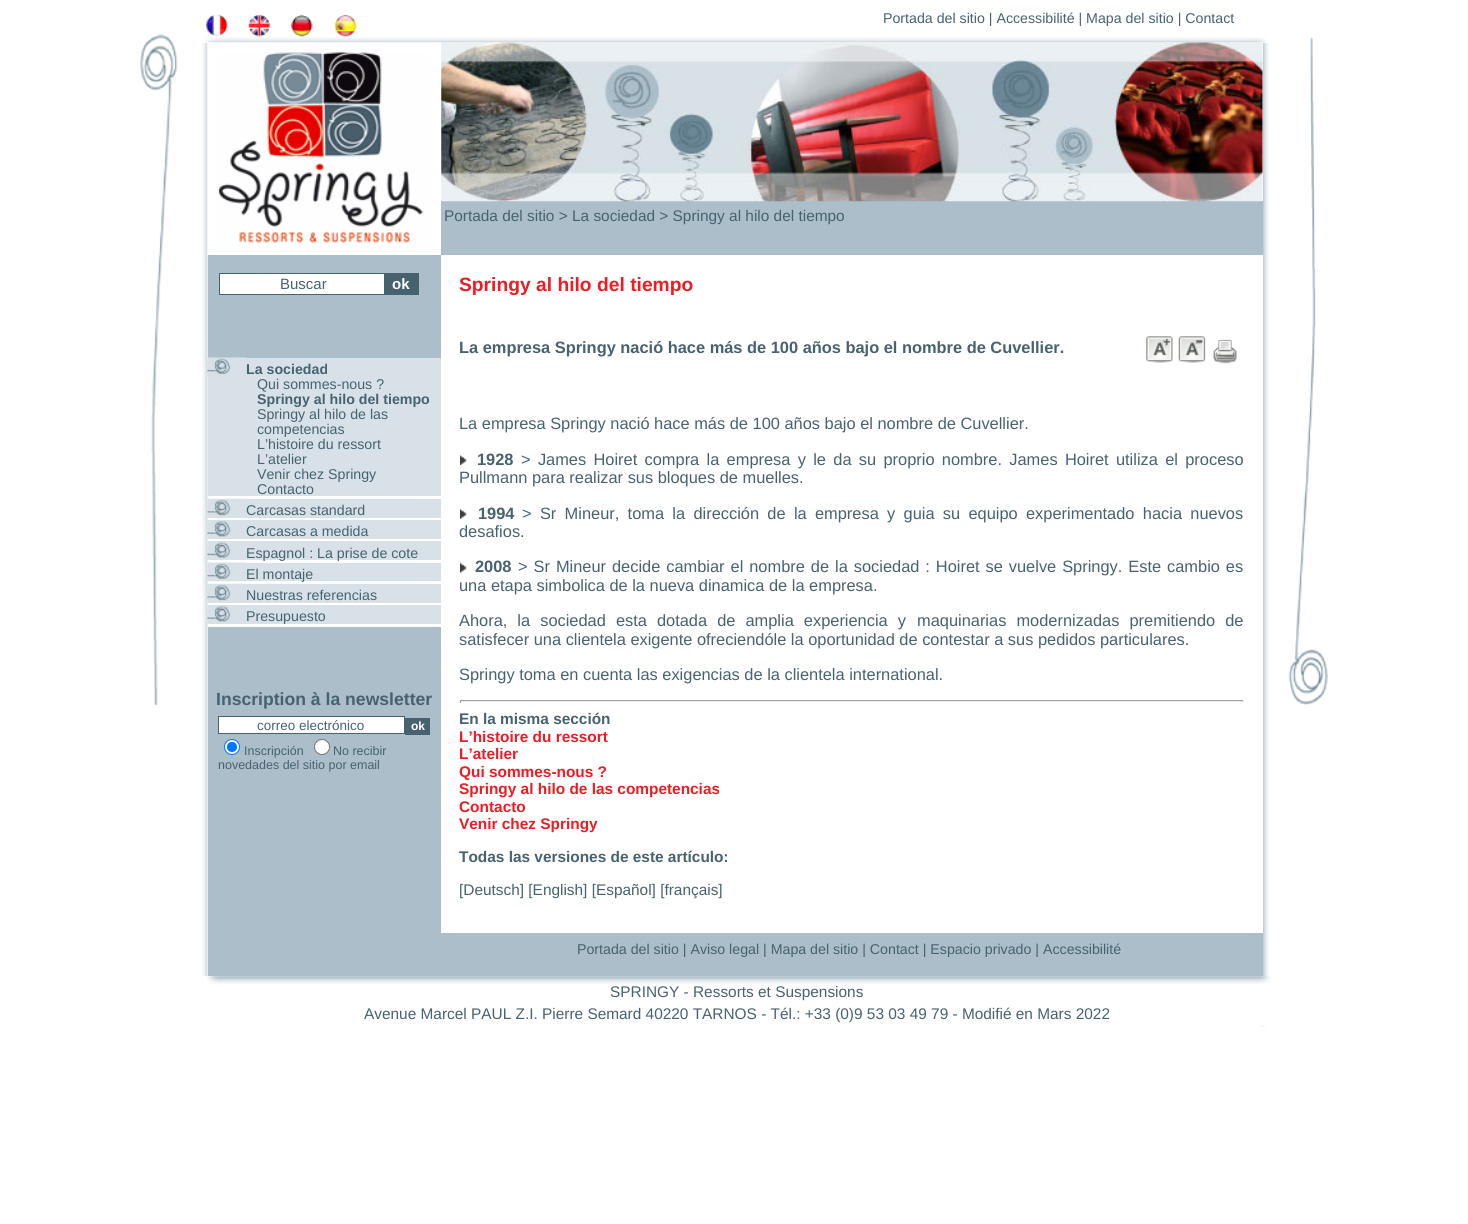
import math
import cairo

surface = cairo.ImageSurface(cairo.FORMAT_RGB24, 1468, 1224)
ctx = cairo.Context(surface)
options = cairo.FontOptions()
options.set_hint_metrics(cairo.HINT_METRICS_OFF)
options.set_hint_style(cairo.HINT_STYLE_NONE)
ctx.set_font_options(options)
ctx.set_miter_limit(4)


def spaced_text(x, y, s, letter, word):
    ctx.move_to(x, y)
    for ch in s:
        ctx.show_text(ch)
        ctx.rel_move_to(letter + word * (ch == ' '), 0)


def picture(path, x, y, w, h):
    ctx.save()
    ctx.set_source_surface(cairo.ImageSurface.create_from_png(path), x, y)
    ctx.rectangle(x, y, w, h)
    ctx.fill()
    ctx.restore()


ctx.set_source_rgb(1, 1, 1)
ctx.paint()
picture("img1.png", 140, 33, 1189, 672)
picture("img2.png", 202, 43, 1067, 984)
picture("img3.png", 205, 37, 1063, 6)
picture("img4.png", 206, 15, 22, 22)
picture("img5.png", 248, 14, 23, 23)
picture("img6.png", 291, 14, 22, 23)
picture("img7.png", 334, 14, 23, 23)
ctx.select_font_face("Liberation Sans")
ctx.set_font_size(14.2)
ctx.set_source_rgb(0.278, 0.384, 0.435)
ctx.move_to(883, 23)
ctx.show_text("Portada del sitio | Accessibilité | Mapa del sitio | Contact")
ctx.set_source_rgb(0.671, 0.745, 0.788)
ctx.rectangle(208, 255, 233, 678)
ctx.fill()
picture("img8.png", 207, 42, 235, 213)
ctx.set_source_rgb(1, 1, 1)
ctx.rectangle(220, 274, 164, 20)
ctx.fill()
ctx.rectangle(219.5, 273.5, 169, 21)
ctx.set_source_rgb(0.278, 0.384, 0.435)
ctx.set_line_width(1)
ctx.stroke()
ctx.set_font_size(15)
ctx.move_to(280, 289)
ctx.show_text("Buscar")
ctx.rectangle(384, 273, 35, 22)
ctx.fill()
ctx.select_font_face("Liberation Sans", cairo.FONT_SLANT_NORMAL, cairo.FONT_WEIGHT_BOLD)
ctx.set_source_rgb(1, 1, 1)
ctx.move_to(392, 289)
ctx.show_text("ok")
ctx.set_source_rgb(0.843, 0.882, 0.906)
ctx.rectangle(208, 358, 233, 138)
ctx.fill()
ctx.set_source_rgb(1, 1, 1)
ctx.rectangle(208, 496, 233, 3)
ctx.fill()
picture("img9.png", 207, 357, 40, 19)
ctx.set_font_size(14.2)
ctx.set_source_rgb(0.278, 0.384, 0.435)
ctx.move_to(246, 374)
ctx.show_text("La sociedad")
ctx.select_font_face("Liberation Sans")
ctx.move_to(257, 389)
ctx.show_text("Qui sommes-nous ?")
ctx.select_font_face("Liberation Sans", cairo.FONT_SLANT_NORMAL, cairo.FONT_WEIGHT_BOLD)
ctx.move_to(257, 404)
ctx.show_text("Springy al hilo del tiempo")
ctx.select_font_face("Liberation Sans")
ctx.move_to(257, 419)
ctx.show_text("Springy al hilo de las")
ctx.move_to(257, 434)
ctx.show_text("competencias")
ctx.move_to(257, 449)
ctx.show_text("L’histoire du ressort")
ctx.move_to(257, 464)
ctx.show_text("L’atelier")
ctx.move_to(257, 479)
ctx.show_text("Venir chez Springy")
ctx.move_to(257, 494)
ctx.show_text("Contacto")
ctx.set_source_rgb(0.843, 0.882, 0.906)
ctx.rectangle(208, 499, 233, 19)
ctx.fill()
ctx.set_source_rgb(1, 1, 1)
ctx.rectangle(208, 518, 233, 2)
ctx.fill()
picture("img10.png", 207, 498, 39, 20)
ctx.set_source_rgb(0.278, 0.384, 0.435)
ctx.move_to(246, 515)
ctx.show_text("Carcasas standard")
ctx.set_source_rgb(0.843, 0.882, 0.906)
ctx.rectangle(208, 520, 233, 19)
ctx.fill()
ctx.set_source_rgb(1, 1, 1)
ctx.rectangle(208, 539, 233, 2)
ctx.fill()
picture("img11.png", 207, 520, 24, 19)
ctx.set_source_rgb(0.278, 0.384, 0.435)
ctx.move_to(246, 536)
ctx.show_text("Carcasas a medida")
ctx.set_source_rgb(0.843, 0.882, 0.906)
ctx.rectangle(208, 541, 233, 19)
ctx.fill()
ctx.set_source_rgb(1, 1, 1)
ctx.rectangle(208, 560, 233, 3)
ctx.fill()
picture("img12.png", 207, 541, 24, 19)
ctx.set_source_rgb(0.278, 0.384, 0.435)
ctx.move_to(246, 558)
ctx.show_text("Espagnol : La prise de cote")
ctx.set_source_rgb(0.843, 0.882, 0.906)
ctx.rectangle(246, 563, 195, 18)
ctx.fill()
ctx.set_source_rgb(1, 1, 1)
ctx.rectangle(208, 581, 233, 3)
ctx.fill()
picture("img13.png", 207, 562, 40, 20)
ctx.set_source_rgb(0.278, 0.384, 0.435)
ctx.move_to(246, 579)
ctx.show_text("El montaje")
ctx.set_source_rgb(0.843, 0.882, 0.906)
ctx.rectangle(208, 584, 233, 19)
ctx.fill()
ctx.set_source_rgb(1, 1, 1)
ctx.rectangle(208, 603, 233, 2)
ctx.fill()
picture("img14.png", 207, 583, 39, 20)
ctx.set_source_rgb(0.278, 0.384, 0.435)
ctx.move_to(246, 600)
ctx.show_text("Nuestras referencias")
ctx.set_source_rgb(0.843, 0.882, 0.906)
ctx.rectangle(208, 605, 233, 19)
ctx.fill()
ctx.set_source_rgb(1, 1, 1)
ctx.rectangle(208, 624, 233, 3)
ctx.fill()
picture("img11.png", 207, 605, 24, 19)
ctx.set_source_rgb(0.278, 0.384, 0.435)
ctx.move_to(246, 621)
ctx.show_text("Presupuesto")
ctx.select_font_face("Liberation Sans", cairo.FONT_SLANT_NORMAL, cairo.FONT_WEIGHT_BOLD)
ctx.set_font_size(17.6)
ctx.move_to(216, 705)
ctx.show_text("Inscription à la newsletter")
ctx.set_source_rgb(1, 1, 1)
ctx.rectangle(218.5, 716.5, 186, 17)
ctx.fill_preserve()
ctx.set_source_rgb(0.278, 0.384, 0.435)
ctx.stroke()
ctx.select_font_face("Liberation Sans")
ctx.set_font_size(13.5)
ctx.move_to(257, 730)
ctx.show_text("correo electrónico")
ctx.rectangle(405, 718, 25, 17)
ctx.fill()
ctx.select_font_face("Liberation Sans", cairo.FONT_SLANT_NORMAL, cairo.FONT_WEIGHT_BOLD)
ctx.set_font_size(12)
ctx.set_source_rgb(1, 1, 1)
ctx.move_to(411, 730)
ctx.show_text("ok")
ctx.new_path()
ctx.arc(232, 747, 7.5, 0, 2 * math.pi)
ctx.fill_preserve()
ctx.set_source_rgb(0, 0.459, 1)
ctx.stroke()
ctx.arc(232, 747, 5, 0, 2 * math.pi)
ctx.fill()
ctx.select_font_face("Liberation Sans")
ctx.set_font_size(12.5)
ctx.set_source_rgb(0.278, 0.384, 0.435)
ctx.move_to(244, 755)
ctx.show_text("Inscripción")
ctx.set_source_rgb(1, 1, 1)
ctx.new_path()
ctx.arc(322, 747, 7.5, 0, 2 * math.pi)
ctx.fill_preserve()
ctx.set_source_rgb(0.463, 0.463, 0.463)
ctx.stroke()
ctx.set_source_rgb(0.278, 0.384, 0.435)
ctx.move_to(333, 755)
ctx.show_text("No recibir")
ctx.move_to(218, 769)
ctx.show_text("novedades del sitio por email")
ctx.set_source_rgb(1, 1, 1)
ctx.rectangle(1261, 43, 2, 890)
ctx.fill()
ctx.set_source_rgb(0.671, 0.745, 0.788)
ctx.rectangle(441, 201, 822, 54)
ctx.fill()
picture("img15.png", 441, 42, 822, 160)
ctx.set_font_size(15.4)
ctx.set_source_rgb(0.278, 0.384, 0.435)
ctx.move_to(444, 221)
ctx.show_text("Portada del sitio > La sociedad > Springy al hilo del tiempo")
ctx.select_font_face("Liberation Sans", cairo.FONT_SLANT_NORMAL, cairo.FONT_WEIGHT_BOLD)
ctx.set_font_size(19.25)
ctx.set_source_rgb(0.929, 0.11, 0.141)
ctx.move_to(459, 291)
ctx.show_text("Springy al hilo del tiempo")
ctx.set_font_size(16.4)
ctx.set_source_rgb(0.278, 0.384, 0.435)
ctx.move_to(459, 353)
ctx.show_text("La empresa Springy nació hace más de 100 años bajo el nombre de Cuvellier.")
picture("img16.png", 1146, 336, 27, 27)
picture("img17.png", 1178, 336, 28, 27)
picture("img18.png", 1213, 339, 24, 25)
ctx.select_font_face("Liberation Sans")
ctx.move_to(459, 429)
ctx.show_text("La empresa Springy nació hace más de 100 años bajo el nombre de Cuvellier.")
picture("img19.png", 460, 455, 7, 10)
ctx.select_font_face("Liberation Sans", cairo.FONT_SLANT_NORMAL, cairo.FONT_WEIGHT_BOLD)
ctx.move_to(477, 465)
ctx.show_text("1928")
ctx.select_font_face("Liberation Sans")
spaced_text(521, 465, "> James Hoiret compra la empresa y le da su proprio nombre. James Hoiret utiliza el proceso", 0, 2.75)
ctx.move_to(459, 483)
ctx.show_text("Pullmann para realizar sus bloques de muelles.")
picture("img20.png", 460, 508, 7, 11)
ctx.select_font_face("Liberation Sans", cairo.FONT_SLANT_NORMAL, cairo.FONT_WEIGHT_BOLD)
ctx.move_to(478, 519)
ctx.show_text("1994")
ctx.select_font_face("Liberation Sans")
spaced_text(522, 519, "> Sr Mineur, toma la dirección de la empresa", 0, 3.75)
spaced_text(887, 519, "y guia su equipo experimentado hacia nuevos", 0, 3.75)
ctx.move_to(459, 537)
ctx.show_text("desafios.")
picture("img21.png", 460, 562, 7, 11)
ctx.select_font_face("Liberation Sans", cairo.FONT_SLANT_NORMAL, cairo.FONT_WEIGHT_BOLD)
ctx.move_to(475, 572)
ctx.show_text("2008")
ctx.select_font_face("Liberation Sans")
spaced_text(518, 572, "> Sr Mineur decide cambiar el nombre de la sociedad : Hoiret se vuelve Springy. Este cambio es", 0, 1.4)
ctx.move_to(459, 591)
ctx.show_text("una etapa simbolica de la nueva dinamica de la empresa.")
spaced_text(459, 626, "Ahora, la sociedad esta dotada de amplia experiencia y", 0, 5.5)
spaced_text(917, 626, "maquinarias modernizadas premitiendo de", 0, 5.5)
ctx.move_to(459, 645)
ctx.show_text("satisfecer una clientela exigente ofreciendóle la oportunidad de contestar a sus pedidos particulares.")
ctx.move_to(459, 680)
ctx.show_text("Springy toma en cuenta las exigencias de la clientela international.")
ctx.set_source_rgb(0.624, 0.624, 0.624)
ctx.rectangle(460, 700, 784, 1)
ctx.fill()
ctx.set_source_rgb(0.933, 0.933, 0.933)
ctx.rectangle(1243, 700, 1, 3)
ctx.fill()
ctx.rectangle(460, 701, 784, 1)
ctx.fill()
ctx.set_source_rgb(0.624, 0.624, 0.624)
ctx.rectangle(460, 700, 1, 3)
ctx.fill()
ctx.select_font_face("Liberation Sans", cairo.FONT_SLANT_NORMAL, cairo.FONT_WEIGHT_BOLD)
ctx.set_font_size(15.4)
ctx.set_source_rgb(0.278, 0.384, 0.435)
ctx.move_to(459, 724)
ctx.show_text("En la misma sección")
ctx.set_source_rgb(0.929, 0.11, 0.141)
ctx.move_to(459, 742)
ctx.show_text("L’histoire du ressort")
ctx.move_to(459, 759)
ctx.show_text("L’atelier")
ctx.move_to(459, 777)
ctx.show_text("Qui sommes-nous ?")
ctx.move_to(459, 794)
ctx.show_text("Springy al hilo de las competencias")
ctx.move_to(459, 812)
ctx.show_text("Contacto")
ctx.move_to(459, 829)
ctx.show_text("Venir chez Springy")
ctx.set_source_rgb(0.278, 0.384, 0.435)
ctx.move_to(459, 862)
ctx.show_text("Todas las versiones de este artículo:")
ctx.select_font_face("Liberation Sans")
ctx.move_to(459, 895)
ctx.show_text("[Deutsch] [English] [Español] [français]")
ctx.set_source_rgb(0.671, 0.745, 0.788)
ctx.rectangle(208, 933, 1055, 43)
ctx.fill()
ctx.set_font_size(14.2)
ctx.set_source_rgb(0.278, 0.384, 0.435)
ctx.move_to(577, 954)
ctx.show_text("Portada del sitio | Aviso legal | Mapa del sitio | Contact | Espacio privado | Accessibilité")
ctx.set_source_rgb(1, 1, 1)
ctx.rectangle(202, 976, 1067, 50)
ctx.fill()
picture("img22.png", 206, 976, 1066, 8)
ctx.set_font_size(15.4)
ctx.set_source_rgb(0.278, 0.384, 0.435)
ctx.move_to(610, 997)
ctx.show_text("SPRINGY - Ressorts et Suspensions")
ctx.move_to(364, 1019)
ctx.show_text("Avenue Marcel PAUL Z.I. Pierre Semard 40220 TARNOS - Tél.: +33 (0)9 53 03 49 79 - Modifié en Mars 2022")
surface.write_to_png("page.png")
